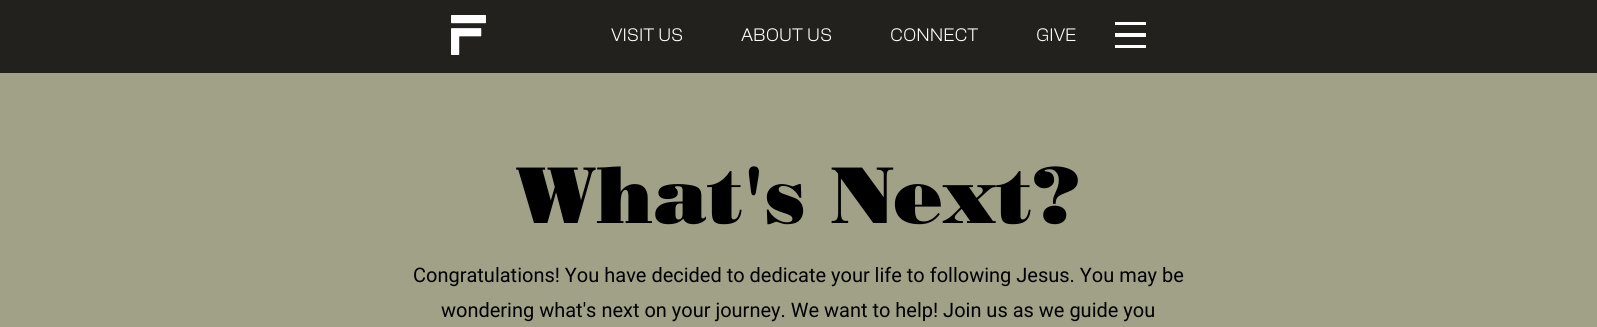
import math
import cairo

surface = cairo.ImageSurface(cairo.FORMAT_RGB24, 1597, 327)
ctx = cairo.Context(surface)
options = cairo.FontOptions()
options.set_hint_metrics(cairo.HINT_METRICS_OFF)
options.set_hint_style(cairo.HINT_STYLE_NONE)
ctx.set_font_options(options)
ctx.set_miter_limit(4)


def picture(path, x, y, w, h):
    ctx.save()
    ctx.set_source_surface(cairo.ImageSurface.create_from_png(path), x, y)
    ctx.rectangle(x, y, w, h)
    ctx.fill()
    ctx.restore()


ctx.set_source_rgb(0.631, 0.631, 0.533)
ctx.paint()
ctx.set_source_rgb(0.137, 0.129, 0.118)
ctx.rectangle(0, 0, 1597, 73)
ctx.fill()
picture("img1.png", 451, 15, 35, 40)
ctx.select_font_face("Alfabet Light")
ctx.set_font_size(18)
ctx.set_source_rgb(1, 1, 1)
ctx.move_to(611, 41)
ctx.show_text("VISIT US")
ctx.move_to(741, 41)
ctx.show_text("ABOUT US")
ctx.move_to(890, 41)
ctx.show_text("CONNECT")
ctx.move_to(1036, 41)
ctx.show_text("GIVE")
ctx.rectangle(1115, 45, 31, 3)
ctx.fill()
ctx.rectangle(1115, 22, 31, 3)
ctx.fill()
ctx.rectangle(1115, 33, 31, 4)
ctx.fill()
ctx.select_font_face("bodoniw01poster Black")
ctx.set_font_size(80)
ctx.set_source_rgb(0, 0, 0)
ctx.move_to(516, 223)
ctx.show_text("What's Next?")
ctx.select_font_face("Roboto")
ctx.set_font_size(20)
ctx.move_to(413, 282)
ctx.show_text("Congratulations! You have decided to dedicate your life to following Jesus. You may be")
ctx.move_to(441, 317)
ctx.show_text("wondering what's next on your journey. We want to help! Join us as we guide you")
surface.write_to_png("page.png")
